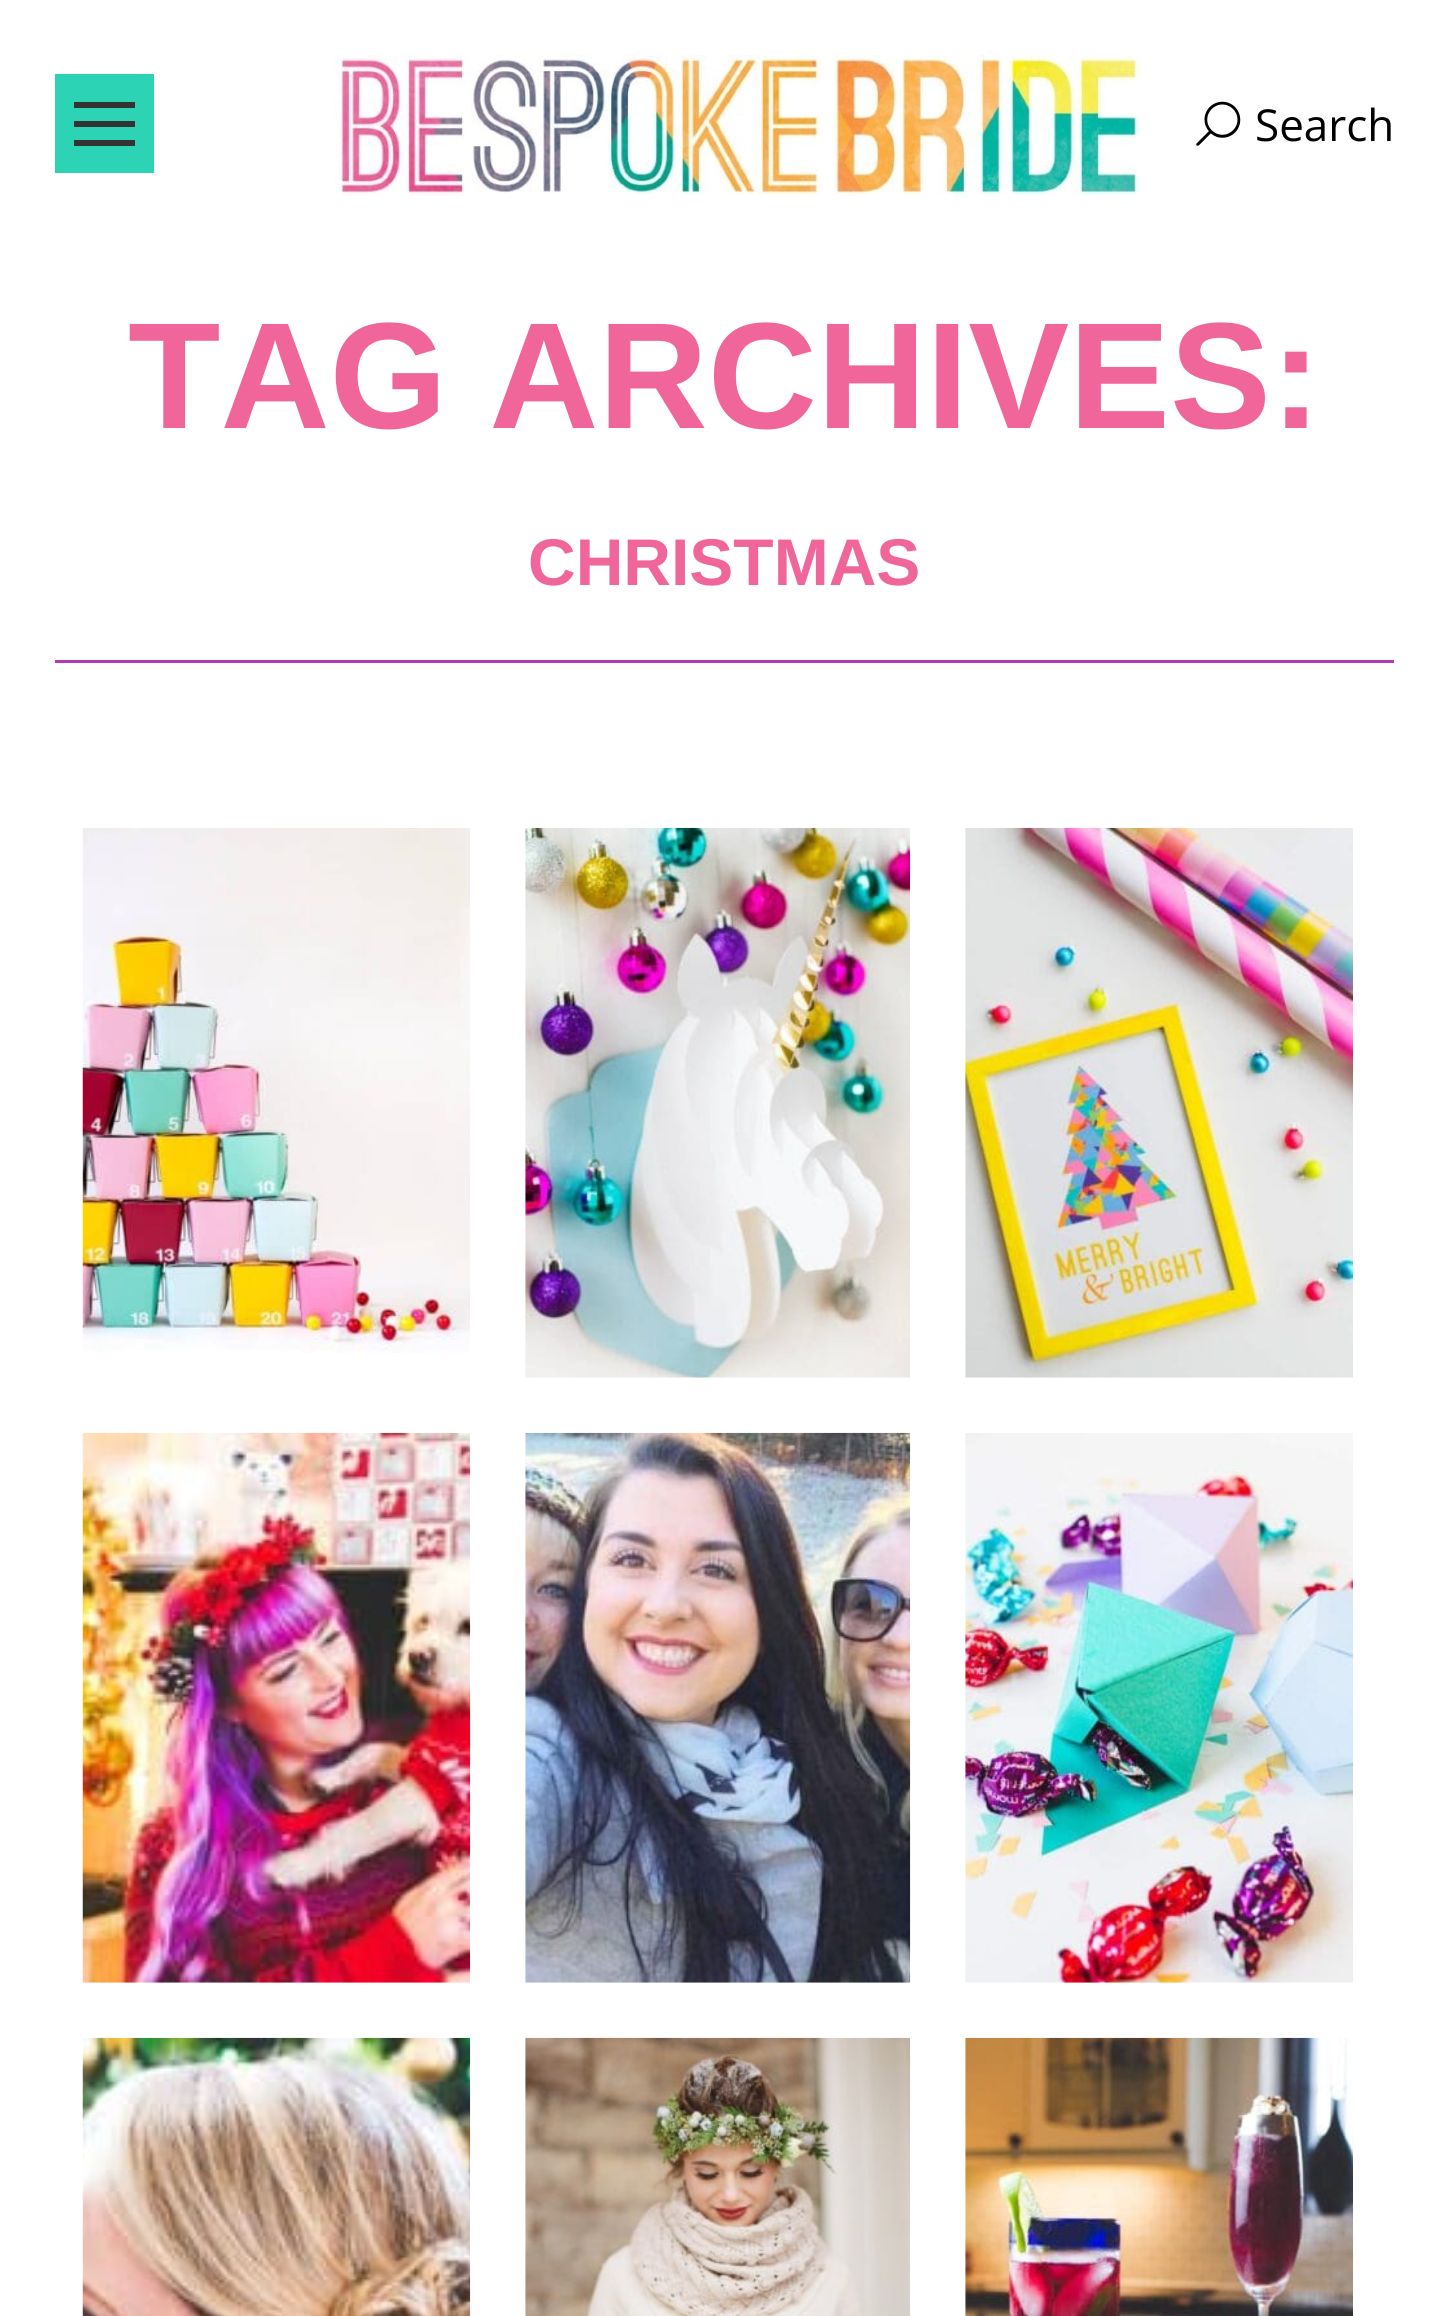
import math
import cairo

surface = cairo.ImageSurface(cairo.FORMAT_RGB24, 1449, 2316)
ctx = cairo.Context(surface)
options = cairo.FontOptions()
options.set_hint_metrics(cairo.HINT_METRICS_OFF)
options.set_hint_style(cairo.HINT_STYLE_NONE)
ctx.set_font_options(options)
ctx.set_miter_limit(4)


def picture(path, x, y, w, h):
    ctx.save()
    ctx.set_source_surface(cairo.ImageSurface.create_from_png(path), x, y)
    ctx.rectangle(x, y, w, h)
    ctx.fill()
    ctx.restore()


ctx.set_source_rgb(1, 1, 1)
ctx.paint()
ctx.set_source_rgb(0.173, 0.827, 0.706)
ctx.rectangle(55, 74, 99, 99)
ctx.fill()
ctx.set_source_rgb(0.2, 0.2, 0.2)
ctx.rectangle(74, 102, 61, 6)
ctx.fill()
ctx.rectangle(74, 121, 61, 6)
ctx.fill()
ctx.rectangle(74, 140, 61, 6)
ctx.fill()
picture("img1.png", 335, 55, 805, 141)
picture("img2.png", 1196, 101, 45, 45)
ctx.select_font_face("Open Sans")
ctx.set_font_size(44)
ctx.set_source_rgb(0, 0, 0)
ctx.move_to(1255, 141)
ctx.show_text("Search")
ctx.select_font_face("Liberation Sans", cairo.FONT_SLANT_NORMAL, cairo.FONT_WEIGHT_BOLD)
ctx.set_font_size(151.25)
ctx.set_source_rgb(0.941, 0.4, 0.604)
ctx.move_to(128, 428)
ctx.show_text("TAG ARCHIVES:")
ctx.set_font_size(66)
ctx.move_to(528, 585)
ctx.show_text("CHRISTMAS")
ctx.set_source_rgb(0.71, 0.231, 0.694)
ctx.rectangle(55, 660, 1339, 3)
ctx.fill()
picture("img3.png", 82, 828, 388, 525)
picture("img4.png", 525, 827, 386, 551)
picture("img5.png", 965, 827, 388, 551)
picture("img6.png", 82, 1432, 389, 551)
picture("img7.png", 525, 1432, 386, 551)
picture("img8.png", 965, 1433, 388, 550)
picture("img9.png", 82, 2037, 389, 279)
picture("img10.png", 525, 2037, 386, 279)
picture("img11.png", 965, 2037, 388, 279)
surface.write_to_png("page.png")
